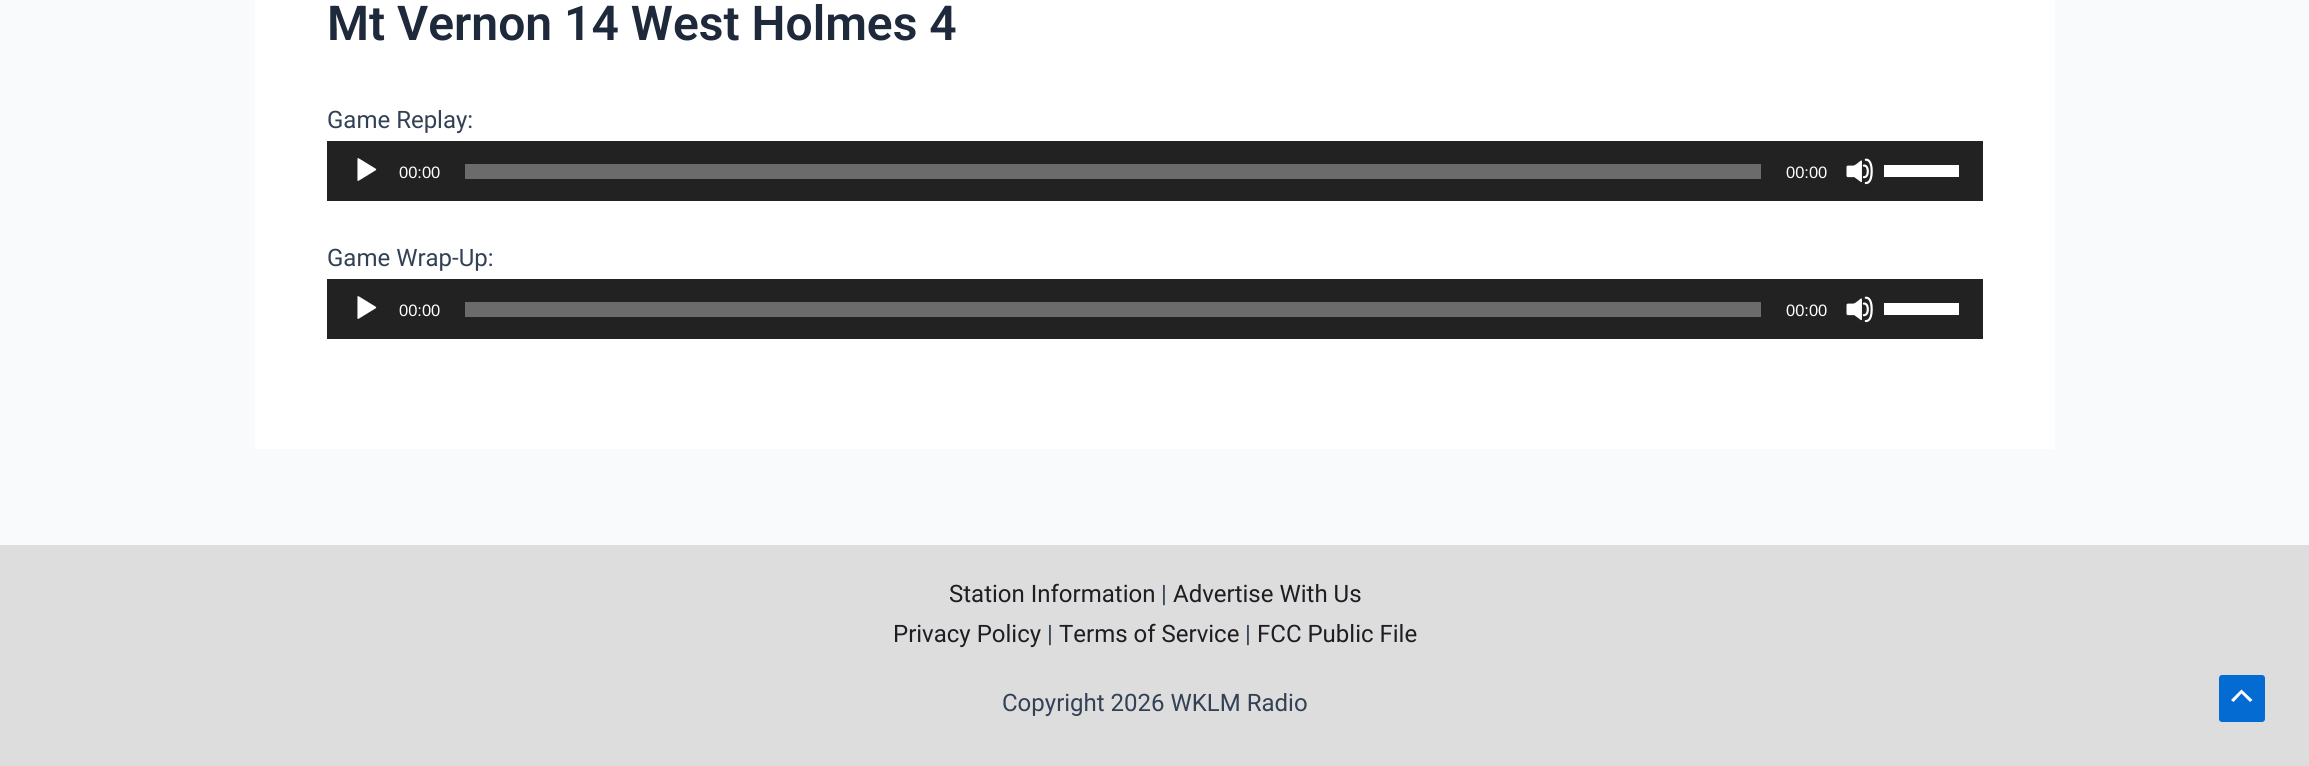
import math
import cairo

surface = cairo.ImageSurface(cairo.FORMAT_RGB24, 2309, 766)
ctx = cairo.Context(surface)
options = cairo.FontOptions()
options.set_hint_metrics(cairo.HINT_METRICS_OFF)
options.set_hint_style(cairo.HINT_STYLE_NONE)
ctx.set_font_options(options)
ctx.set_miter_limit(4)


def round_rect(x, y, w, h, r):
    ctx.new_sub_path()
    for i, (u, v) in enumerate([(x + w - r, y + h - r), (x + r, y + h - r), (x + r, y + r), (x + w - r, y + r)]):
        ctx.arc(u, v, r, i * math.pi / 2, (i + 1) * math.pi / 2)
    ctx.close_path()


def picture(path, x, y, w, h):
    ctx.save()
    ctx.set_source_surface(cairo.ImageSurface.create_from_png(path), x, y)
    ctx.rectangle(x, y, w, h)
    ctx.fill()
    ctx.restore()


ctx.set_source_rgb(0.976, 0.98, 0.984)
ctx.paint()
ctx.set_source_rgb(1, 1, 1)
ctx.rectangle(255, 0, 1800, 449)
ctx.fill()
ctx.select_font_face("Roboto SemiBold")
ctx.set_font_size(48)
ctx.set_source_rgb(0.118, 0.161, 0.231)
ctx.move_to(327, 40)
ctx.show_text("Mt Vernon 14 West Holmes 4")
ctx.select_font_face("Roboto")
ctx.set_font_size(24)
ctx.set_source_rgb(0.2, 0.255, 0.333)
ctx.move_to(327, 128)
ctx.show_text("Game Replay:")
ctx.set_source_rgb(0.133, 0.133, 0.133)
ctx.rectangle(327, 141, 1656, 60)
ctx.fill()
picture("img1.png", 357, 158, 20, 23)
ctx.select_font_face("Liberation Sans")
ctx.set_font_size(16.5)
ctx.set_source_rgb(1, 1, 1)
ctx.move_to(399, 178)
ctx.show_text("00:00")
ctx.set_source_rgb(0.42, 0.42, 0.42)
ctx.rectangle(465, 164, 1296, 15)
ctx.fill()
ctx.set_source_rgb(1, 1, 1)
ctx.move_to(1786, 178)
ctx.show_text("00:00")
picture("img2.png", 1846, 158, 27, 27)
ctx.rectangle(1884, 165, 75, 12)
ctx.fill()
ctx.select_font_face("Roboto")
ctx.set_font_size(24)
ctx.set_source_rgb(0.2, 0.255, 0.333)
ctx.move_to(327, 266)
ctx.show_text("Game Wrap-Up:")
ctx.set_source_rgb(0.133, 0.133, 0.133)
ctx.rectangle(327, 279, 1656, 60)
ctx.fill()
picture("img1.png", 357, 296, 20, 23)
ctx.select_font_face("Liberation Sans")
ctx.set_font_size(16.5)
ctx.set_source_rgb(1, 1, 1)
ctx.move_to(399, 316)
ctx.show_text("00:00")
ctx.set_source_rgb(0.42, 0.42, 0.42)
ctx.rectangle(465, 302, 1296, 15)
ctx.fill()
ctx.set_source_rgb(1, 1, 1)
ctx.move_to(1786, 316)
ctx.show_text("00:00")
picture("img2.png", 1846, 296, 27, 27)
ctx.rectangle(1884, 303, 75, 12)
ctx.fill()
ctx.set_source_rgb(0.867, 0.867, 0.867)
ctx.rectangle(0, 545, 2309, 221)
ctx.fill()
ctx.select_font_face("Roboto")
ctx.set_font_size(24)
ctx.set_source_rgb(0.114, 0.114, 0.137)
ctx.move_to(949, 602)
ctx.show_text("Station Information")
ctx.set_source_rgb(0.2, 0.255, 0.333)
ctx.move_to(1161, 602)
ctx.show_text("|")
ctx.set_source_rgb(0.114, 0.114, 0.137)
ctx.move_to(1173, 602)
ctx.show_text("Advertise With Us")
ctx.move_to(893, 642)
ctx.show_text("Privacy Policy")
ctx.set_source_rgb(0.2, 0.255, 0.333)
ctx.move_to(1047, 642)
ctx.show_text("|")
ctx.set_source_rgb(0.114, 0.114, 0.137)
ctx.move_to(1059, 642)
ctx.show_text("Terms of Service")
ctx.set_source_rgb(0.2, 0.255, 0.333)
ctx.move_to(1245, 642)
ctx.show_text("|")
ctx.set_source_rgb(0.114, 0.114, 0.137)
ctx.move_to(1257, 642)
ctx.show_text("FCC Public File")
ctx.set_source_rgb(0.2, 0.255, 0.333)
ctx.move_to(1002, 711)
ctx.show_text("Copyright 2026 WKLM Radio")
ctx.set_source_rgb(0.016, 0.42, 0.824)
round_rect(2219, 675, 46, 47, 3)
ctx.fill()
ctx.set_source_rgb(1, 1, 1)
ctx.new_path()
ctx.move_to(2252.5, 700)
ctx.line_to(2241.5, 689.5)
ctx.line_to(2231, 700)
ctx.line_to(2233.5, 702)
ctx.line_to(2241.5, 693.5)
ctx.line_to(2250, 702)
ctx.close_path()
ctx.fill()
surface.write_to_png("page.png")
